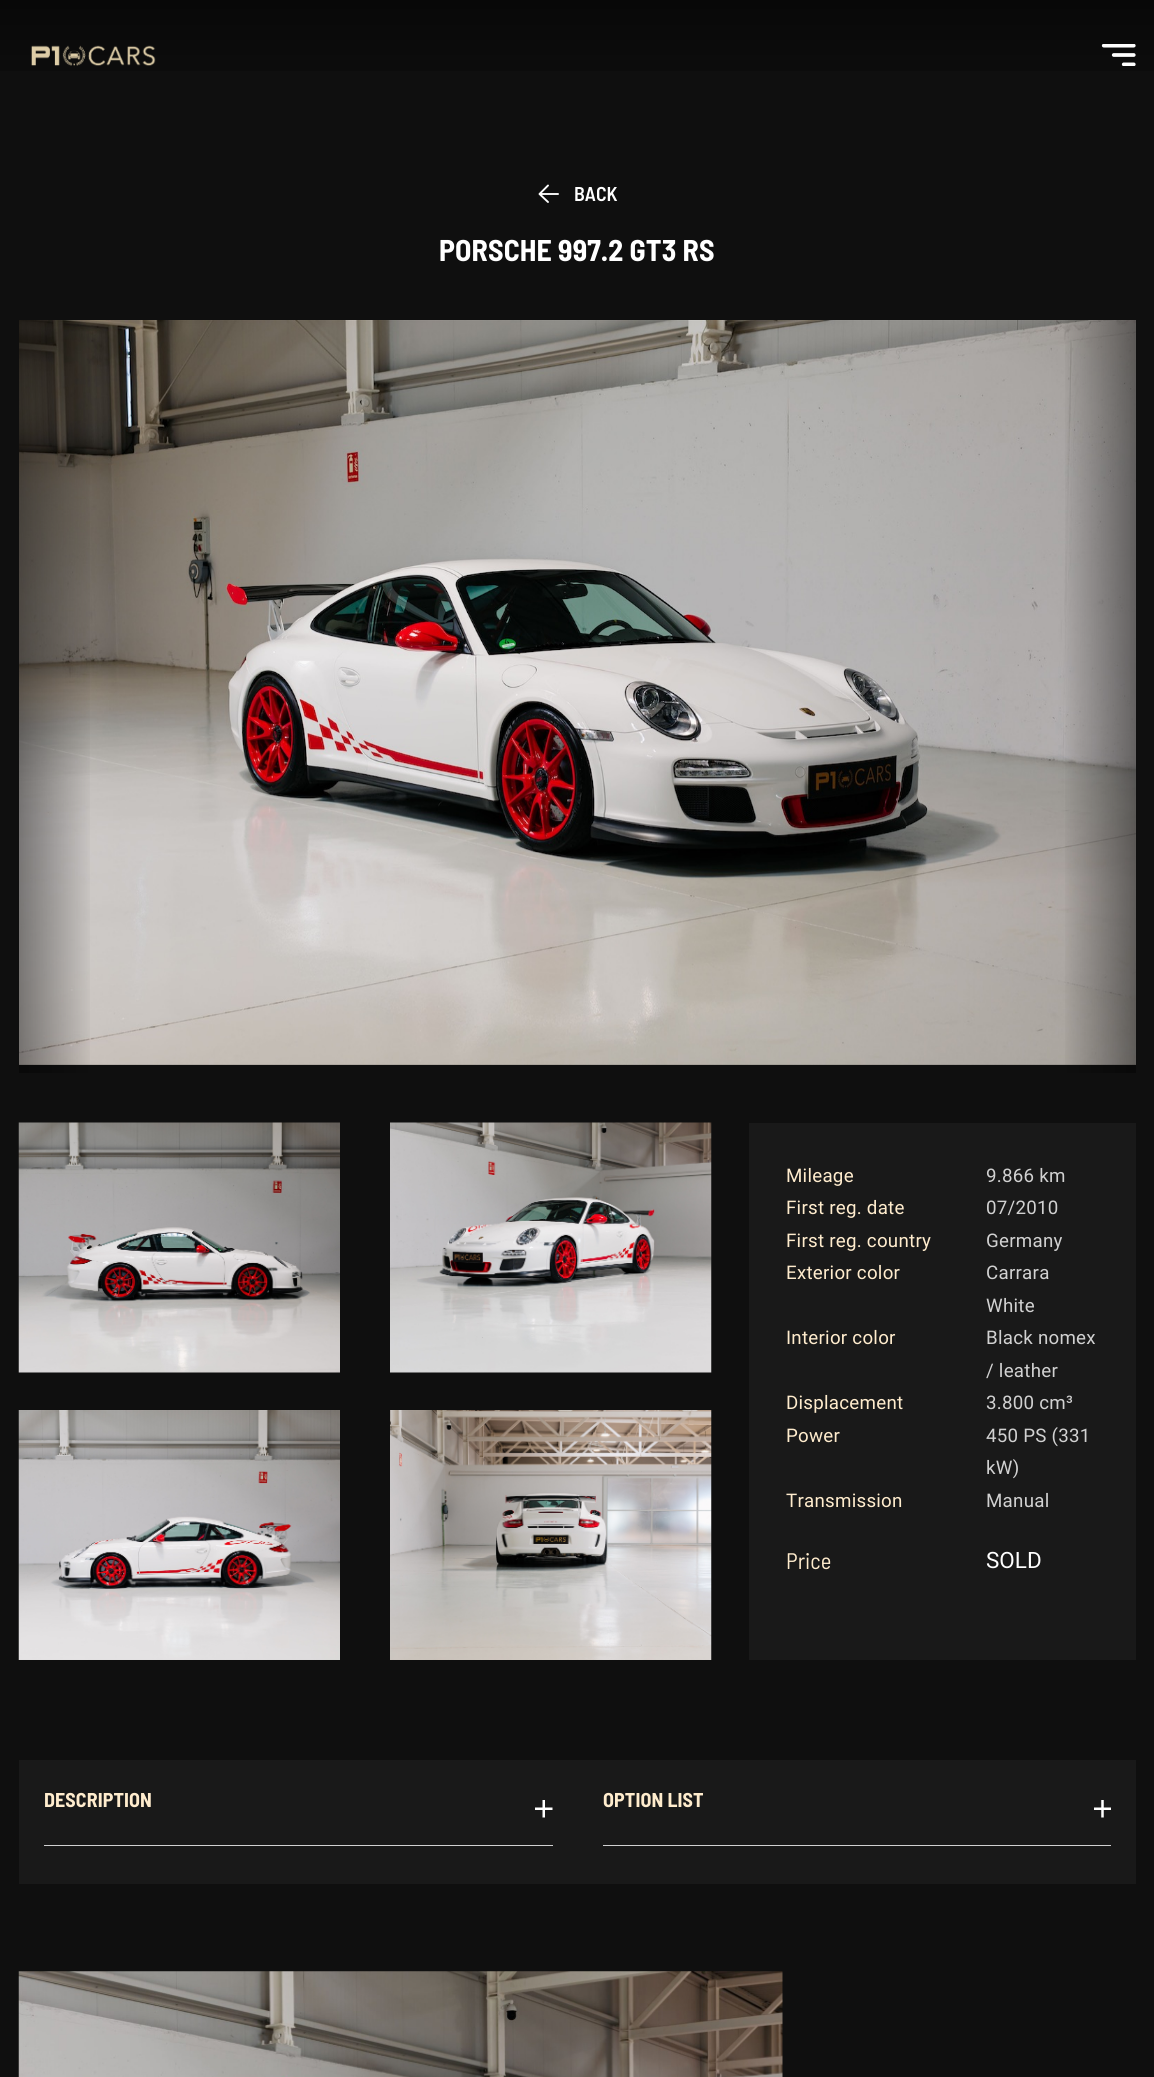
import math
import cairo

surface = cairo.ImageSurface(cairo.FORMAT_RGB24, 1154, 2077)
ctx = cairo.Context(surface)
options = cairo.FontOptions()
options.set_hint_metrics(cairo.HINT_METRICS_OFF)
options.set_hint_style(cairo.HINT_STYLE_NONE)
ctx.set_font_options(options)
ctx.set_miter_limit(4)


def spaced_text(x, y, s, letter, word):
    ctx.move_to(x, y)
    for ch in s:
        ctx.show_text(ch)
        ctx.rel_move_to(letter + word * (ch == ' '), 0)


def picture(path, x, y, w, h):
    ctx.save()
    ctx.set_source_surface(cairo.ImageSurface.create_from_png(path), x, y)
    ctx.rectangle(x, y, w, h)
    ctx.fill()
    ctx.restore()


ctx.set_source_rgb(0.059, 0.059, 0.059)
ctx.paint()
gradient = cairo.LinearGradient(578, 0, 578, 110)
gradient.add_color_stop_rgba(0, 0.031, 0.031, 0.031, 1)
gradient.add_color_stop_rgba(1, 0.059, 0.059, 0.059, 1)
ctx.set_source(gradient)
ctx.rectangle(0, 0, 1154, 71)
ctx.fill()
picture("img1.png", 31, 45, 125, 21)
picture("img2.png", 1101, 44, 35, 22)
ctx.new_path()
ctx.move_to(548, 202)
ctx.line_to(539.5, 194)
ctx.line_to(548, 185.5)
ctx.move_to(541, 194)
ctx.line_to(558, 194)
ctx.set_source_rgb(1, 1, 1)
ctx.set_line_width(1.9)
ctx.set_line_cap(cairo.LINE_CAP_ROUND)
ctx.set_line_join(cairo.LINE_JOIN_ROUND)
ctx.stroke()
ctx.select_font_face("Barlow Semi Condensed SemiBold")
ctx.set_font_size(20)
ctx.move_to(574, 201)
ctx.show_text("BACK")
ctx.select_font_face("Barlow Semi Condensed", cairo.FONT_SLANT_NORMAL, cairo.FONT_WEIGHT_BOLD)
ctx.set_font_size(30)
spaced_text(439, 261, "PORSCHE 997.2 GT3 RS", 0.1, 0)
picture("img3.png", 19, 320, 1117, 745)
gradient = cairo.LinearGradient(19, 696, 94, 696)
gradient.add_color_stop_rgba(0, 0, 0, 0, 0.42)
gradient.add_color_stop_rgba(1, 0, 0, 0, 0)
ctx.set_source(gradient)
ctx.rectangle(19, 320, 71, 753)
ctx.fill()
gradient = cairo.LinearGradient(1136, 696, 1061, 696)
gradient.add_color_stop_rgba(0, 0, 0, 0, 0.42)
gradient.add_color_stop_rgba(1, 0, 0, 0, 0)
ctx.set_source(gradient)
ctx.rectangle(1065, 320, 71, 753)
ctx.fill()
picture("img4.png", 18, 1122, 322, 251)
picture("img5.png", 390, 1122, 322, 251)
picture("img6.png", 18, 1410, 322, 250)
picture("img7.png", 390, 1410, 322, 250)
ctx.set_source_rgb(0.098, 0.098, 0.098)
ctx.rectangle(749, 1123, 387, 537)
ctx.fill()
ctx.select_font_face("Roboto")
ctx.set_font_size(18.75)
ctx.set_source_rgb(1, 0.922, 0.804)
spaced_text(786, 1182, "Mileage", 0.25, 0)
ctx.set_source_rgb(0.82, 0.82, 0.82)
spaced_text(986, 1182, "9.866 km", 0.25, 0)
ctx.set_source_rgb(1, 0.922, 0.804)
spaced_text(786, 1214, "First reg. date", 0.25, 0)
ctx.set_source_rgb(0.82, 0.82, 0.82)
spaced_text(986, 1214, "07/2010", 0.25, 0)
ctx.set_source_rgb(1, 0.922, 0.804)
spaced_text(786, 1247, "First reg. country", 0.25, 0)
ctx.set_source_rgb(0.82, 0.82, 0.82)
spaced_text(986, 1247, "Germany", 0.25, 0)
ctx.set_source_rgb(1, 0.922, 0.804)
spaced_text(786, 1279, "Exterior color", 0.25, 0)
ctx.set_source_rgb(0.82, 0.82, 0.82)
spaced_text(986, 1279, "Carrara", 0.25, 0)
spaced_text(986, 1312, "White", 0.25, 0)
ctx.set_source_rgb(1, 0.922, 0.804)
spaced_text(786, 1344, "Interior color", 0.25, 0)
ctx.set_source_rgb(0.82, 0.82, 0.82)
spaced_text(986, 1344, "Black nomex", 0.25, 0)
spaced_text(986, 1377, "/ leather", 0.25, 0)
ctx.set_source_rgb(1, 0.922, 0.804)
spaced_text(786, 1409, "Displacement", 0.25, 0)
ctx.set_source_rgb(0.82, 0.82, 0.82)
spaced_text(986, 1409, "3.800 cm³", 0.25, 0)
ctx.set_source_rgb(1, 0.922, 0.804)
spaced_text(786, 1442, "Power", 0.25, 0)
ctx.set_source_rgb(0.82, 0.82, 0.82)
spaced_text(986, 1442, "450 PS (331", 0.25, 0)
spaced_text(986, 1474, "kW)", 0.25, 0)
ctx.set_source_rgb(1, 0.922, 0.804)
spaced_text(786, 1507, "Transmission", 0.25, 0)
ctx.set_source_rgb(0.82, 0.82, 0.82)
spaced_text(986, 1507, "Manual", 0.25, 0)
ctx.select_font_face("Barlow Semi Condensed")
ctx.set_font_size(22.5)
ctx.set_source_rgb(1, 0.922, 0.804)
ctx.move_to(786, 1569)
ctx.show_text("Price")
ctx.select_font_face("Roboto")
ctx.set_source_rgb(1, 1, 1)
ctx.move_to(986, 1568)
ctx.show_text("SOLD")
ctx.set_source_rgb(0.098, 0.098, 0.098)
ctx.rectangle(19, 1760, 1117, 124)
ctx.fill()
ctx.set_source_rgb(0.82, 0.82, 0.82)
ctx.rectangle(44, 1845, 509, 1)
ctx.fill()
ctx.select_font_face("Barlow Semi Condensed", cairo.FONT_SLANT_NORMAL, cairo.FONT_WEIGHT_BOLD)
ctx.set_font_size(20)
ctx.set_source_rgb(1, 0.922, 0.804)
spaced_text(44, 1807, "DESCRIPTION", 0.1, 0)
picture("img8.png", 535, 1800, 18, 18)
ctx.set_source_rgb(0.82, 0.82, 0.82)
ctx.rectangle(603, 1845, 508, 1)
ctx.fill()
ctx.set_source_rgb(1, 0.922, 0.804)
spaced_text(603, 1807, "OPTION LIST", 0.1, 0)
picture("img9.png", 1094, 1800, 17, 18)
picture("img10.png", 18, 1971, 765, 106)
surface.write_to_png("page.png")
